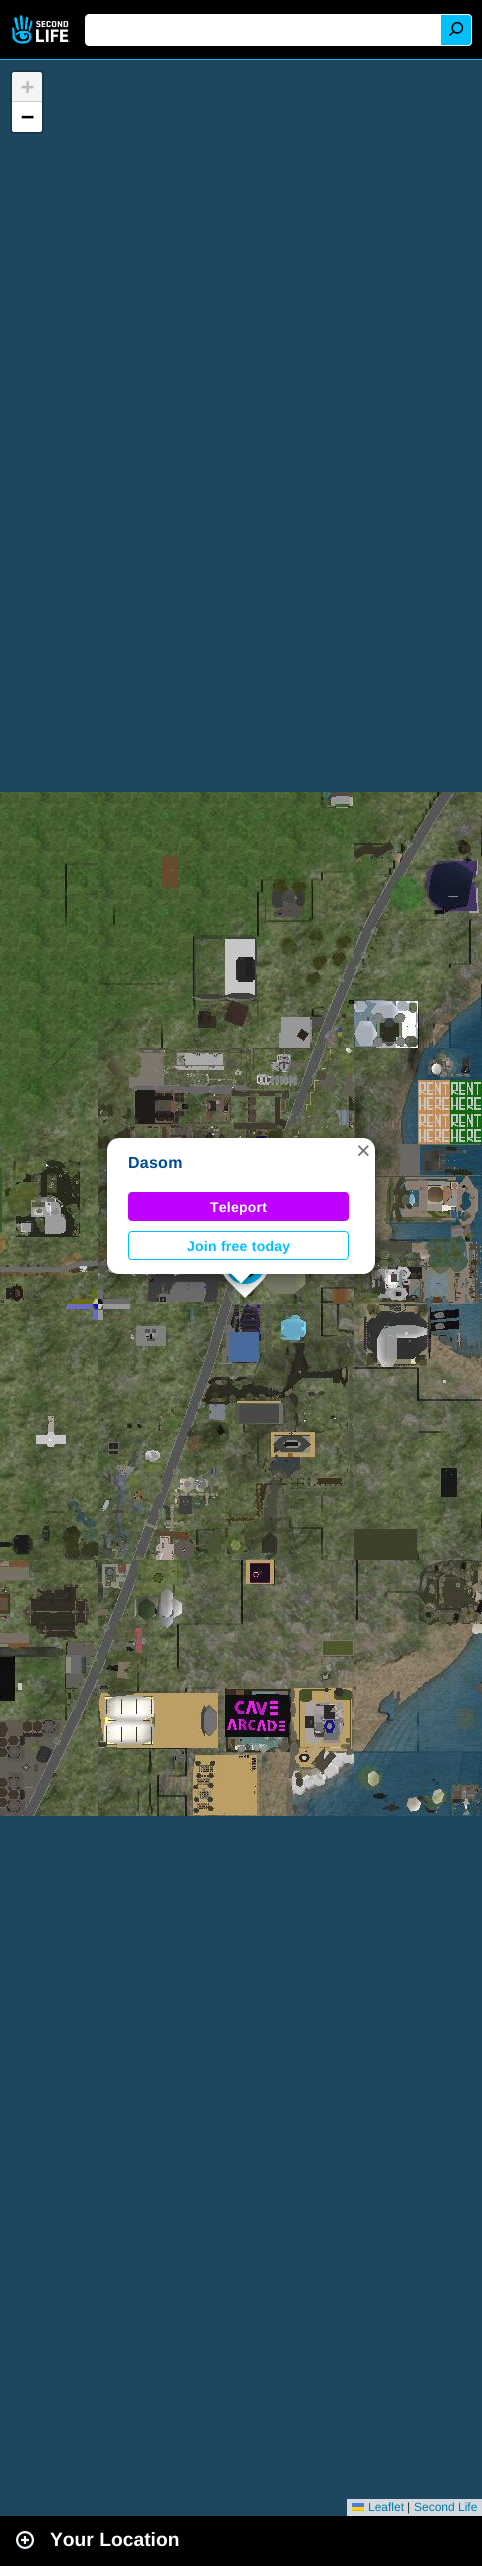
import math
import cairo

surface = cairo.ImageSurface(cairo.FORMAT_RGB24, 482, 2566)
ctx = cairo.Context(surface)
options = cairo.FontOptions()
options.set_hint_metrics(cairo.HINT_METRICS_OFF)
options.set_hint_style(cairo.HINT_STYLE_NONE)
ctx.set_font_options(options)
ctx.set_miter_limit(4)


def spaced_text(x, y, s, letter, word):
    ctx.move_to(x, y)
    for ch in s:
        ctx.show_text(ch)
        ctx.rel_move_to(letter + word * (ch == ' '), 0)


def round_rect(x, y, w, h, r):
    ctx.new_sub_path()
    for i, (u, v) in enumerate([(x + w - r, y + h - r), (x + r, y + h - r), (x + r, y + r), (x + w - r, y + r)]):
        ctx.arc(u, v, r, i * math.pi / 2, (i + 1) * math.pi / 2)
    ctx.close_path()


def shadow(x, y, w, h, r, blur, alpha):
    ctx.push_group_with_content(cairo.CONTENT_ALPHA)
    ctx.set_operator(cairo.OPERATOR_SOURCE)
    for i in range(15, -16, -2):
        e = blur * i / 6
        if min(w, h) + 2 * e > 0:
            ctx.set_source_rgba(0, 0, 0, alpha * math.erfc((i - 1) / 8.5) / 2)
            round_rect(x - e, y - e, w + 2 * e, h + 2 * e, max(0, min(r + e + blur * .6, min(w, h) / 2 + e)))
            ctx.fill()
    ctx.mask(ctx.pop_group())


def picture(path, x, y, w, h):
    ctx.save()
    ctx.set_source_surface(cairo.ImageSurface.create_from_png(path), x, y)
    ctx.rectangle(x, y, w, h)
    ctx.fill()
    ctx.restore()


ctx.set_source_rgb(0, 0, 0)
ctx.paint()
ctx.set_source_rgb(0, 0.749, 1)
ctx.rectangle(0, 59, 482, 1)
ctx.fill()
picture("img1.png", 12, 15, 58, 29)
ctx.set_source_rgb(1, 1, 1)
ctx.new_path()
ctx.move_to(89, 14)
ctx.line_to(444, 14)
ctx.line_to(444, 46)
ctx.line_to(89, 46)
ctx.curve_to(87, 46, 85, 44, 85, 42)
ctx.line_to(85, 18)
ctx.curve_to(85, 16, 87, 14, 89, 14)
ctx.close_path()
ctx.fill()
ctx.set_source_rgb(0, 0.749, 1)
ctx.new_path()
ctx.move_to(440.5, 14.5)
ctx.line_to(468, 14.5)
ctx.curve_to(470, 14.5, 471.5, 16, 471.5, 18)
ctx.line_to(471.5, 42)
ctx.curve_to(471.5, 44, 470, 45.5, 468, 45.5)
ctx.line_to(440.5, 45.5)
ctx.close_path()
ctx.fill_preserve()
ctx.set_source_rgb(1, 1, 1)
ctx.set_line_width(1)
ctx.stroke()
picture("img2.png", 449, 21, 15, 15)
ctx.set_source_rgb(0.114, 0.278, 0.373)
ctx.rectangle(0, 60, 482, 2456)
ctx.fill()
round_rect(11, 71, 32, 62, 3)
ctx.set_source_rgb(0.09, 0.224, 0.298)
ctx.set_line_width(2)
ctx.stroke()
ctx.set_source_rgb(0.957, 0.957, 0.957)
ctx.new_path()
ctx.move_to(14, 72)
ctx.line_to(40, 72)
ctx.curve_to(41, 72, 42, 73, 42, 74)
ctx.line_to(42, 102)
ctx.line_to(12, 102)
ctx.line_to(12, 74)
ctx.curve_to(12, 73, 13, 72, 14, 72)
ctx.close_path()
ctx.fill()
ctx.set_source_rgb(0.8, 0.8, 0.8)
ctx.rectangle(12, 101, 30, 1)
ctx.fill()
ctx.select_font_face("DejaVu Sans Mono", cairo.FONT_SLANT_NORMAL, cairo.FONT_WEIGHT_BOLD)
ctx.set_font_size(22)
ctx.set_source_rgb(0.733, 0.733, 0.733)
ctx.move_to(21, 94)
ctx.show_text("+")
ctx.set_source_rgb(1, 1, 1)
ctx.new_path()
ctx.move_to(12, 102)
ctx.line_to(42, 102)
ctx.line_to(42, 130)
ctx.curve_to(42, 131, 41, 132, 40, 132)
ctx.line_to(14, 132)
ctx.curve_to(13, 132, 12, 131, 12, 130)
ctx.close_path()
ctx.fill()
ctx.set_source_rgb(0, 0, 0)
ctx.move_to(21, 124)
ctx.show_text("−")
ctx.set_source_rgb(0.824, 0.855, 0.875)
ctx.rectangle(347, 2499, 135, 17)
ctx.fill()
ctx.select_font_face("Liberation Sans")
ctx.set_font_size(12)
ctx.set_source_rgb(0, 0.471, 0.659)
ctx.move_to(368, 2511)
ctx.show_text("Leaflet")
ctx.set_source_rgb(0.298, 0.482, 0.882)
ctx.rectangle(352, 2503, 12, 4)
ctx.fill()
ctx.set_source_rgb(1, 0.835, 0)
ctx.rectangle(352, 2507, 12, 3)
ctx.fill()
ctx.set_source_rgb(0.878, 0.737, 0)
ctx.rectangle(352, 2510, 12, 1)
ctx.fill()
ctx.set_source_rgb(0.2, 0.2, 0.2)
ctx.move_to(407, 2511)
ctx.show_text("|")
ctx.set_source_rgb(0, 0.471, 0.659)
ctx.move_to(414, 2511)
ctx.show_text("Second Life")
picture("img3.png", 0, 792, 98, 256)
picture("img4.png", 98, 792, 256, 256)
picture("img5.png", 354, 792, 128, 256)
picture("img6.png", 0, 1048, 98, 256)
picture("img7.png", 98, 1048, 256, 256)
picture("img8.png", 354, 1048, 128, 256)
picture("img9.png", 0, 1304, 98, 256)
picture("img10.png", 98, 1304, 256, 256)
picture("img11.png", 354, 1304, 128, 256)
picture("img12.png", 0, 1560, 98, 256)
picture("img13.png", 98, 1560, 256, 256)
picture("img14.png", 354, 1560, 128, 256)
picture("img15.png", 223, 1274, 44, 24)
ctx.set_source_rgb(0, 0, 0)
shadow(107, 1141, 268, 136, 12, 7, 0.4)
ctx.set_source_rgb(1, 1, 1)
round_rect(107, 1138, 268, 136, 12)
ctx.fill()
ctx.set_font_size(25)
ctx.set_source_rgb(0.459, 0.459, 0.459)
ctx.move_to(356, 1159)
ctx.show_text("×")
ctx.select_font_face("Liberation Sans", cairo.FONT_SLANT_NORMAL, cairo.FONT_WEIGHT_BOLD)
ctx.set_font_size(16)
ctx.set_source_rgb(0.004, 0.29, 0.557)
spaced_text(128, 1168, "Dasom", 0.25, 0)
ctx.set_source_rgb(0.749, 0, 1)
round_rect(128, 1192, 221, 29, 4)
ctx.fill()
ctx.set_font_size(14)
ctx.set_source_rgb(1, 1, 1)
spaced_text(210, 1212, "Teleport", 0.25, 0)
round_rect(128.5, 1231.5, 220, 28, 3.5)
ctx.set_source_rgb(0, 0.749, 1)
ctx.set_line_width(1)
ctx.stroke()
spaced_text(187, 1251, "Join free today", 0.25, 0)
ctx.save()
ctx.rectangle(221, 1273, 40, 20)
ctx.clip()
ctx.set_source_rgb(0, 0, 0)
shadow(232, 1266, 17, 17, 0, 7, 0.4)
ctx.restore()
ctx.save()
ctx.rectangle(221, 1273, 40, 20)
ctx.clip()
ctx.set_source_rgb(1, 1, 1)
ctx.new_path()
ctx.move_to(241, 1259.5)
ctx.line_to(253, 1271.5)
ctx.line_to(241, 1283.5)
ctx.line_to(229, 1271.5)
ctx.close_path()
ctx.fill()
ctx.restore()
picture("img16.png", 16, 2531, 18, 18)
ctx.set_font_size(19.25)
ctx.set_source_rgb(1, 1, 1)
ctx.move_to(50, 2546)
ctx.show_text("Your Location")
surface.write_to_png("page.png")
